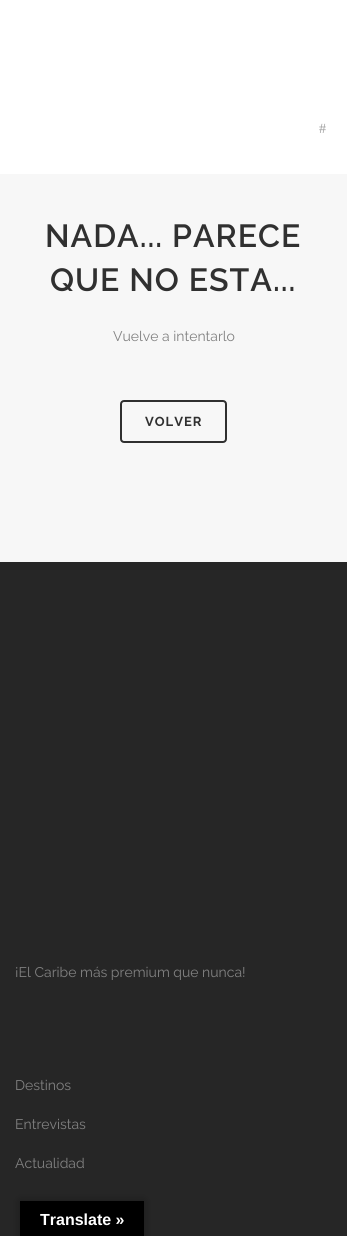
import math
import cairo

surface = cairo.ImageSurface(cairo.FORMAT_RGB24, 347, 1236)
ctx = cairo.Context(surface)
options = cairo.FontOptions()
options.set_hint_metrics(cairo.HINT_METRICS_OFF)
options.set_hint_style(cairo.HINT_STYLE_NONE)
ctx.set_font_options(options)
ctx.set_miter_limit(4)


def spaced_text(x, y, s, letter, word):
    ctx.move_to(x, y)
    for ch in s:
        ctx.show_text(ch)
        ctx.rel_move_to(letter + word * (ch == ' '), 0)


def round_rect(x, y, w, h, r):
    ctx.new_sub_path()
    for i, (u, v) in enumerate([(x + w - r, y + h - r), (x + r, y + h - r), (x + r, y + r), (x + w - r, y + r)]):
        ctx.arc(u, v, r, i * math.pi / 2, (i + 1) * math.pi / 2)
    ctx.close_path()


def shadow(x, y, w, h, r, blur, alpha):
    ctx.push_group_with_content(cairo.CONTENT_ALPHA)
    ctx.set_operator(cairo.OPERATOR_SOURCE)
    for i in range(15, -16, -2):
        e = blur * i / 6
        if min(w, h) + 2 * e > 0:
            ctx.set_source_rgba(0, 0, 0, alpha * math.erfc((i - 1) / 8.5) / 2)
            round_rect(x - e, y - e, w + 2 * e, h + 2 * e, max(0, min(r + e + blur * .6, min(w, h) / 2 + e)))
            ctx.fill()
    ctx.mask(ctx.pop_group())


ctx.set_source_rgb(0.965, 0.965, 0.965)
ctx.paint()
ctx.set_source_rgb(1, 1, 1)
ctx.rectangle(0, 0, 347, 174)
ctx.fill()
ctx.select_font_face("Liberation Serif")
ctx.set_font_size(14)
ctx.set_source_rgb(0.616, 0.616, 0.616)
ctx.move_to(319, 133)
ctx.show_text("#")
ctx.select_font_face("Raleway SemiBold")
ctx.set_font_size(32)
ctx.set_source_rgb(0.188, 0.188, 0.188)
spaced_text(45, 247, "NADA... PARECE", 1, 0)
spaced_text(50, 291, "QUE NO ESTA...", 1, 0)
ctx.select_font_face("Raleway")
ctx.set_font_size(14)
ctx.set_source_rgb(0.506, 0.506, 0.506)
ctx.move_to(113, 341)
ctx.show_text("Vuelve a intentarlo")
round_rect(121, 401, 105, 41, 3)
ctx.set_source_rgb(0.188, 0.188, 0.188)
ctx.stroke()
ctx.select_font_face("Raleway", cairo.FONT_SLANT_NORMAL, cairo.FONT_WEIGHT_BOLD)
ctx.set_font_size(13)
spaced_text(145, 426, "VOLVER", 1, 0)
ctx.set_source_rgb(0.149, 0.149, 0.149)
ctx.rectangle(0, 562, 347, 674)
ctx.fill()
ctx.select_font_face("Raleway")
ctx.set_font_size(14)
ctx.set_source_rgb(0.506, 0.506, 0.506)
ctx.move_to(15, 977)
ctx.show_text("¡El Caribe más premium que nunca!")
ctx.move_to(15, 1090)
ctx.show_text("Destinos")
ctx.move_to(15, 1129)
ctx.show_text("Entrevistas")
ctx.move_to(15, 1168)
ctx.show_text("Actualidad")
ctx.set_source_rgb(0, 0, 0)
shadow(20, 1201, 124, 35, 0, 4.5, 0.3)
ctx.set_source_rgb(0, 0, 0)
ctx.rectangle(20, 1201, 124, 35)
ctx.fill()
ctx.select_font_face("Liberation Sans", cairo.FONT_SLANT_NORMAL, cairo.FONT_WEIGHT_BOLD)
ctx.set_font_size(16)
ctx.set_source_rgb(1, 1, 1)
ctx.move_to(40, 1225)
ctx.show_text("Translate »")
surface.write_to_png("page.png")
